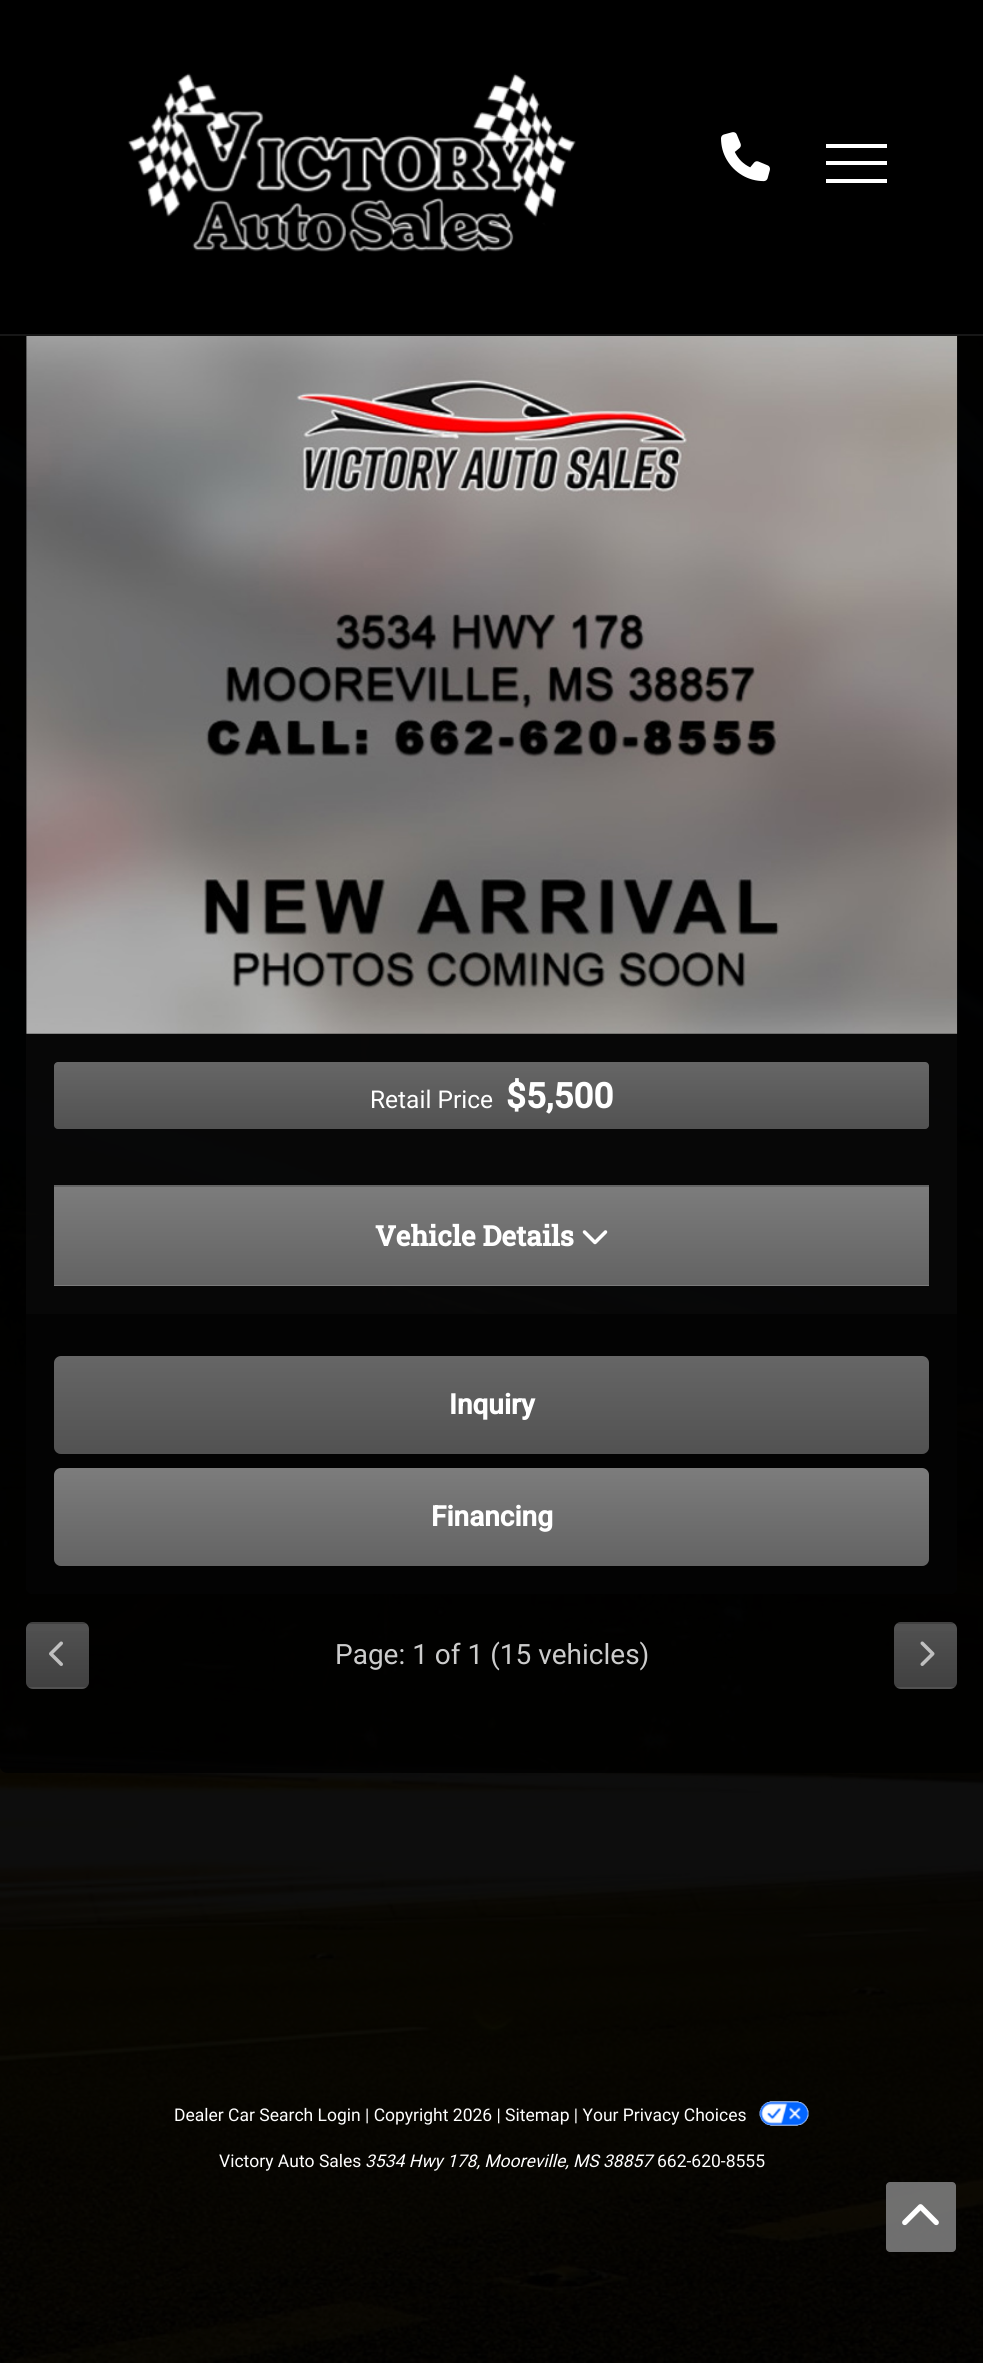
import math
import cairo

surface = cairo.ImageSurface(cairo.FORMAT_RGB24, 983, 2363)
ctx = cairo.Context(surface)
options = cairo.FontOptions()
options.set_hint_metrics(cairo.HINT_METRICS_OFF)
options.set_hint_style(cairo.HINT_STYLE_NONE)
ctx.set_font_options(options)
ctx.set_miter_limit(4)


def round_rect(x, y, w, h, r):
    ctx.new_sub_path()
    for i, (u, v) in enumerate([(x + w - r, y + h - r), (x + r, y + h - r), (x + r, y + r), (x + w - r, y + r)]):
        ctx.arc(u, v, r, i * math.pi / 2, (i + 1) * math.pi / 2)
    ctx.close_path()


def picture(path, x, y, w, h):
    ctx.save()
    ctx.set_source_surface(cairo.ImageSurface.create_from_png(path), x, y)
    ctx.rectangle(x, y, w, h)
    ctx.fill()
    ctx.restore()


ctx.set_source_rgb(1, 1, 1)
ctx.paint()
picture("img1.png", 0, 336, 983, 2027)
ctx.set_source_rgba(0, 0, 0, 0.8)
round_rect(0, -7, 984, 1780, 7)
ctx.fill()
ctx.set_source_rgba(0.051, 0.051, 0.051, 0.6)
round_rect(26, 242, 931, 1352, 7)
ctx.fill()
ctx.set_source_rgb(0, 0, 0)
ctx.rectangle(0, 0, 983, 334)
ctx.fill()
ctx.set_source_rgb(0.09, 0.09, 0.09)
ctx.rectangle(0, 334, 983, 2)
ctx.fill()
picture("img2.png", 127, 73, 449, 179)
picture("img3.png", 721, 132, 49, 50)
ctx.set_source_rgb(1, 1, 1)
ctx.rectangle(826, 161, 61, 4)
ctx.fill()
ctx.rectangle(826, 144, 61, 4)
ctx.fill()
ctx.rectangle(826, 179, 61, 4)
ctx.fill()
picture("img4.png", 26, 336, 932, 698)
ctx.set_source_rgb(0.4, 0.4, 0.4)
round_rect(54, 1062, 875, 67, 4)
ctx.fill()
gradient = cairo.LinearGradient(492, 1062, 492, 1129)
gradient.add_color_stop_rgba(0, 0, 0, 0, 0)
gradient.add_color_stop_rgba(1, 0, 0, 0, 0.2)
ctx.set_source(gradient)
round_rect(54, 1062, 875, 67, 4)
ctx.fill()
ctx.select_font_face("Roboto")
ctx.set_font_size(24.5)
ctx.set_source_rgb(1, 1, 1)
ctx.move_to(370, 1108)
ctx.show_text("Retail Price")
ctx.select_font_face("Roboto", cairo.FONT_SLANT_NORMAL, cairo.FONT_WEIGHT_BOLD)
ctx.set_font_size(35)
ctx.move_to(506, 1108)
ctx.show_text("$5,500")
ctx.set_source_rgb(0.486, 0.486, 0.486)
ctx.rectangle(54, 1285, 875, 1)
ctx.fill()
gradient = cairo.LinearGradient(492, 1089, 492, 1187)
gradient.add_color_stop_rgba(0, 0.486, 0.486, 0.486, 1)
gradient.add_color_stop_rgba(1, 0.388, 0.388, 0.388, 1)
ctx.set_source(gradient)
ctx.rectangle(54, 1185, 875, 2)
ctx.fill()
gradient = cairo.LinearGradient(492, 1187, 492, 1285)
gradient.add_color_stop_rgba(0, 0.486, 0.486, 0.486, 1)
gradient.add_color_stop_rgba(1, 0.388, 0.388, 0.388, 1)
ctx.set_source(gradient)
ctx.rectangle(54, 1187, 875, 98)
ctx.fill()
ctx.select_font_face("Roboto Slab", cairo.FONT_SLANT_NORMAL, cairo.FONT_WEIGHT_BOLD)
ctx.set_font_size(28)
ctx.set_source_rgb(1, 1, 1)
ctx.move_to(375, 1246)
ctx.show_text("Vehicle Details")
picture("img5.png", 582, 1230, 26, 15)
ctx.set_source_rgba(0, 0, 0, 0.6)
ctx.new_path()
ctx.move_to(26, 1314)
ctx.line_to(957, 1314)
ctx.line_to(957, 1587)
ctx.curve_to(957, 1591, 954, 1594, 950, 1594)
ctx.line_to(33, 1594)
ctx.curve_to(29, 1594, 26, 1591, 26, 1587)
ctx.close_path()
ctx.fill()
ctx.set_source_rgb(0.4, 0.4, 0.4)
round_rect(54, 1356, 875, 98, 7)
ctx.fill()
gradient = cairo.LinearGradient(492, 1356, 492, 1454)
gradient.add_color_stop_rgba(0, 0, 0, 0, 0)
gradient.add_color_stop_rgba(1, 0, 0, 0, 0.2)
ctx.set_source(gradient)
round_rect(54, 1356, 875, 98, 7)
ctx.fill()
ctx.select_font_face("Roboto", cairo.FONT_SLANT_NORMAL, cairo.FONT_WEIGHT_BOLD)
ctx.set_source_rgb(1, 1, 1)
ctx.move_to(449, 1414)
ctx.show_text("Inquiry")
ctx.set_source_rgb(0.486, 0.486, 0.486)
round_rect(54, 1468, 875, 98, 7)
ctx.fill()
gradient = cairo.LinearGradient(492, 1468, 492, 1566)
gradient.add_color_stop_rgba(0, 0, 0, 0, 0)
gradient.add_color_stop_rgba(1, 0, 0, 0, 0.2)
ctx.set_source(gradient)
round_rect(54, 1468, 875, 98, 7)
ctx.fill()
ctx.set_source_rgb(1, 1, 1)
ctx.move_to(431, 1526)
ctx.show_text("Financing")
ctx.set_source_rgb(0.318, 0.318, 0.318)
round_rect(26, 1622, 63, 67, 7)
ctx.fill()
ctx.save()
round_rect(26, 1622, 63, 67, 7)
ctx.clip()
gradient = cairo.LinearGradient(58, 1561, 58, 1624)
gradient.add_color_stop_rgba(0, 0, 0, 0, 0)
gradient.add_color_stop_rgba(1, 0, 0, 0, 0.2)
ctx.set_source(gradient)
ctx.rectangle(26, 1622, 63, 2)
ctx.fill()
gradient = cairo.LinearGradient(58, 1624, 58, 1687)
gradient.add_color_stop_rgba(0, 0, 0, 0, 0)
gradient.add_color_stop_rgba(1, 0, 0, 0, 0.2)
ctx.set_source(gradient)
ctx.rectangle(26, 1631, 63, 56)
ctx.fill()
ctx.restore()
picture("img6.png", 49, 1641, 14, 25)
ctx.select_font_face("Roboto")
ctx.set_source_rgb(0.8, 0.8, 0.8)
ctx.move_to(335, 1664)
ctx.show_text("Page: 1 of 1 (15 vehicles)")
ctx.set_source_rgb(0.318, 0.318, 0.318)
round_rect(894, 1622, 63, 67, 7)
ctx.fill()
ctx.save()
round_rect(894, 1622, 63, 67, 7)
ctx.clip()
gradient = cairo.LinearGradient(926, 1561, 926, 1624)
gradient.add_color_stop_rgba(0, 0, 0, 0, 0)
gradient.add_color_stop_rgba(1, 0, 0, 0, 0.2)
ctx.set_source(gradient)
ctx.rectangle(894, 1622, 63, 2)
ctx.fill()
gradient = cairo.LinearGradient(926, 1624, 926, 1687)
gradient.add_color_stop_rgba(0, 0, 0, 0, 0)
gradient.add_color_stop_rgba(1, 0, 0, 0, 0.2)
ctx.set_source(gradient)
ctx.rectangle(894, 1631, 63, 56)
ctx.fill()
ctx.restore()
picture("img7.png", 920, 1641, 15, 25)
ctx.set_font_size(17.5)
ctx.set_source_rgb(1, 1, 1)
ctx.move_to(174, 2121)
ctx.show_text("Dealer Car Search Login | Copyright 2026 | Sitemap | Your Privacy Choices")
picture("img8.png", 759, 2101, 50, 25)
ctx.move_to(219, 2167)
ctx.show_text("Victory Auto Sales")
ctx.select_font_face("Roboto", cairo.FONT_SLANT_ITALIC)
ctx.move_to(365, 2167)
ctx.show_text("3534 Hwy 178, Mooreville, MS 38857")
ctx.select_font_face("Roboto")
ctx.move_to(657, 2167)
ctx.show_text("662-620-8555")
ctx.set_source_rgba(0.486, 0.486, 0.486, 0.9)
round_rect(886, 2182, 70, 70, 4)
ctx.fill()
picture("img9.png", 902, 2204, 37, 22)
surface.write_to_png("page.png")
